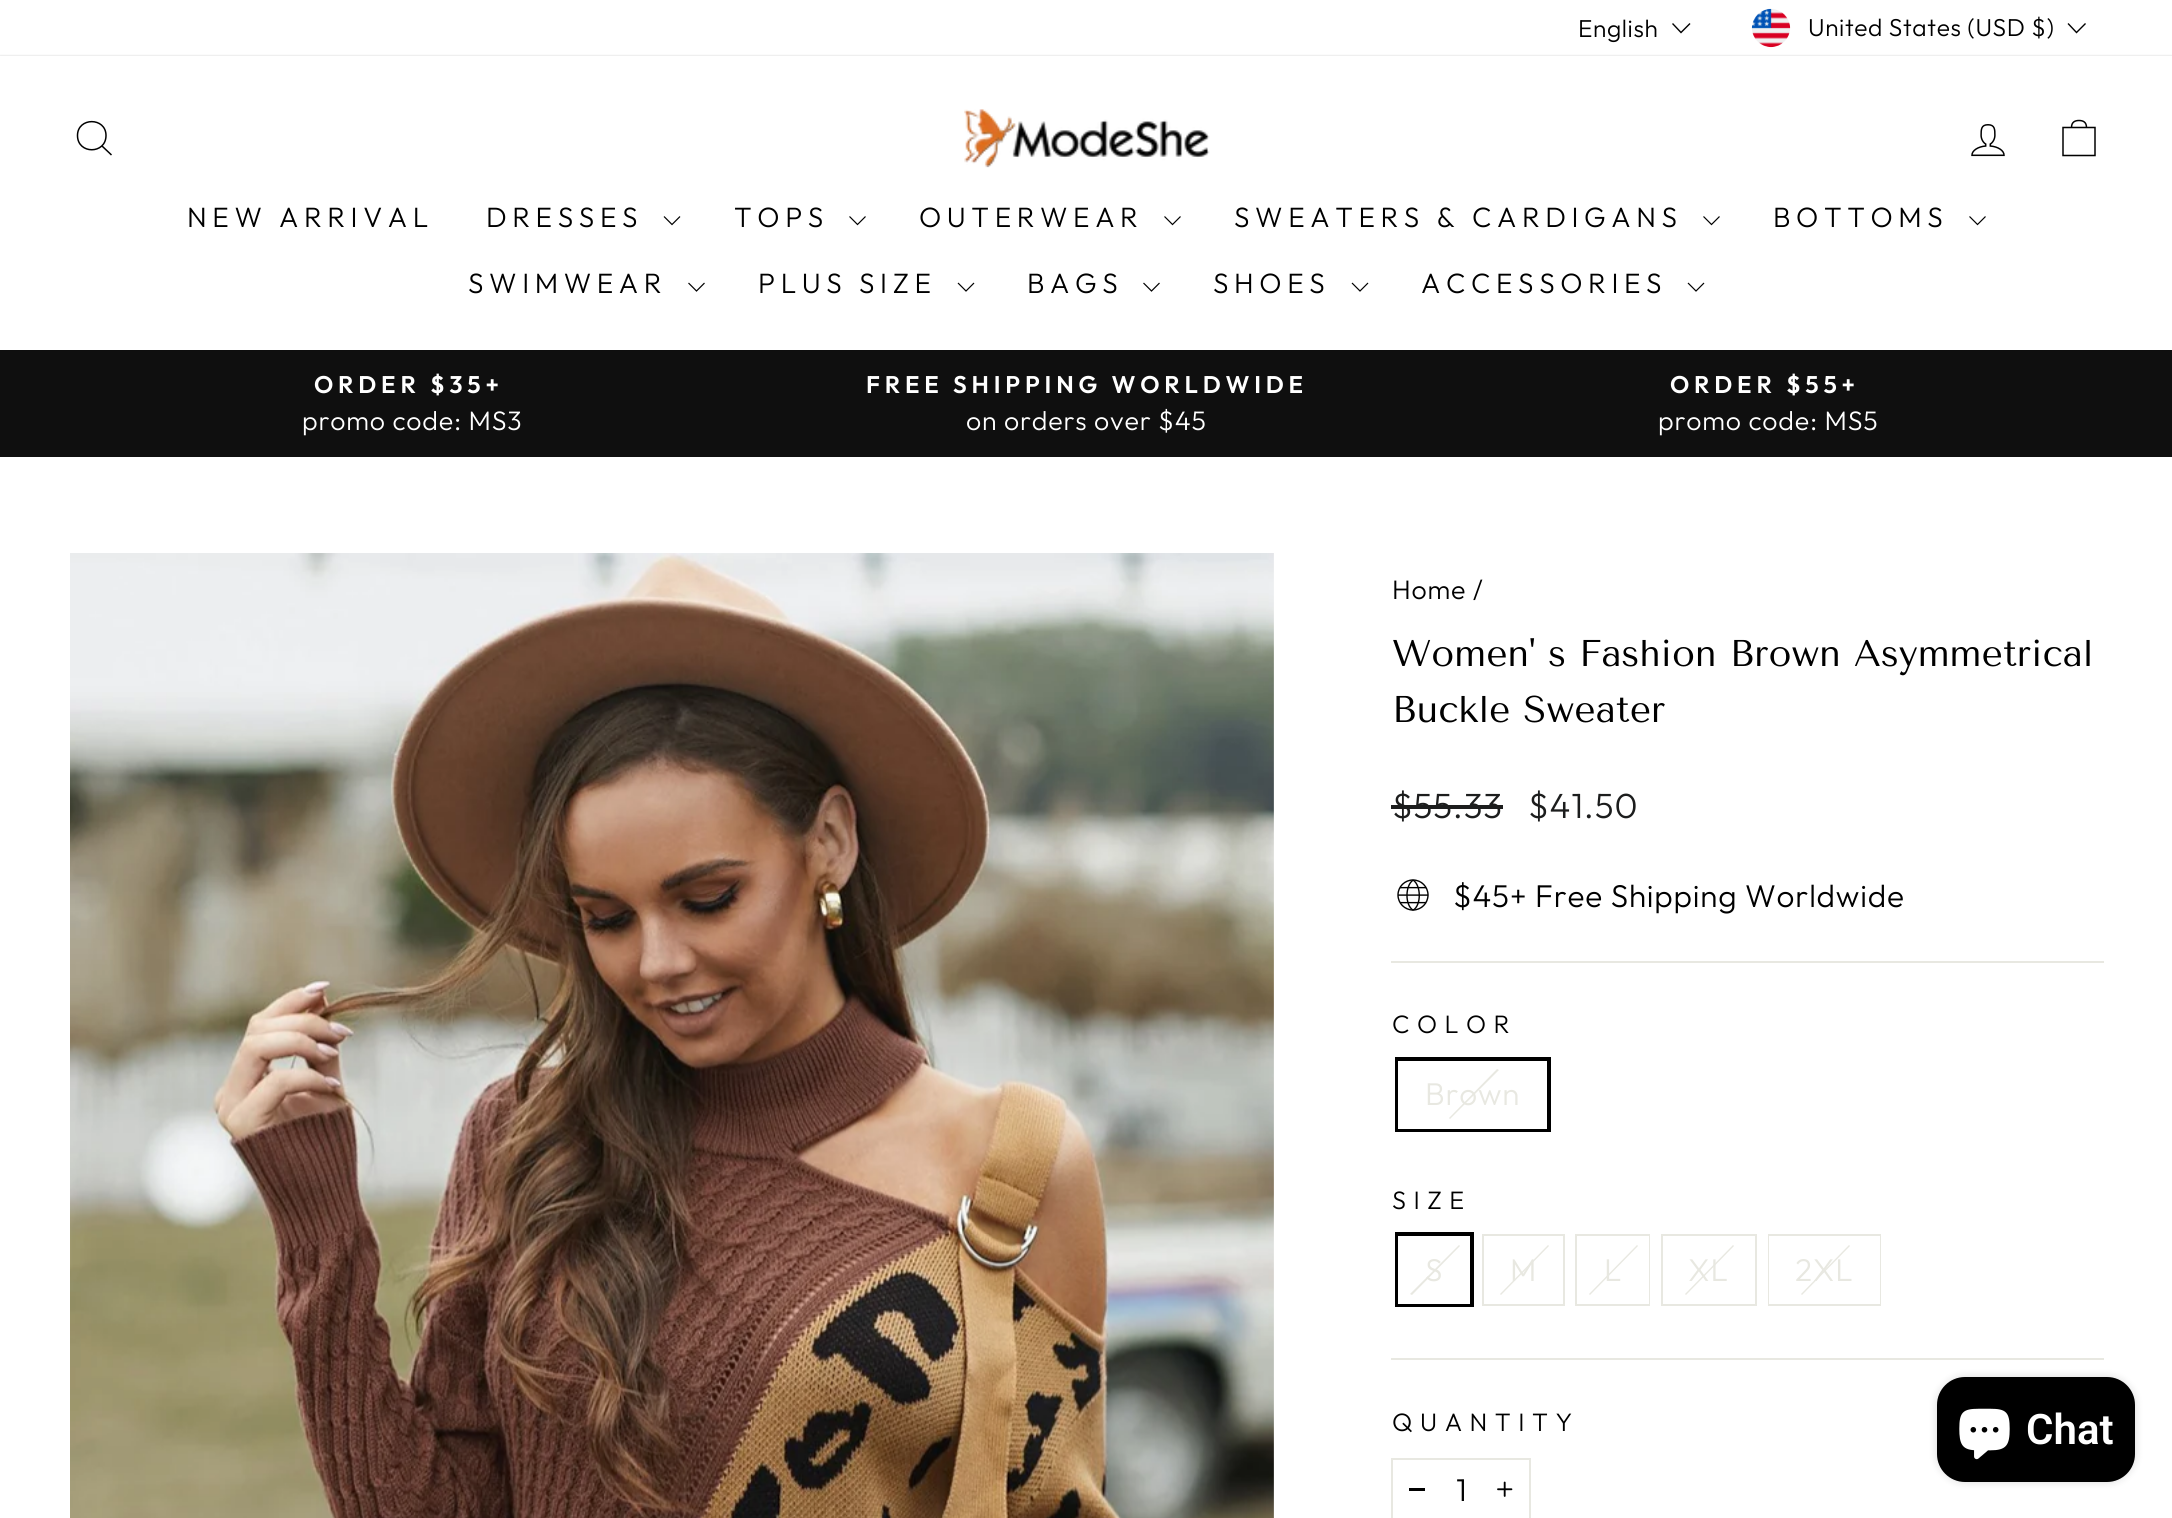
import math
import cairo

surface = cairo.ImageSurface(cairo.FORMAT_RGB24, 2172, 1518)
ctx = cairo.Context(surface)
options = cairo.FontOptions()
options.set_hint_metrics(cairo.HINT_METRICS_OFF)
options.set_hint_style(cairo.HINT_STYLE_NONE)
ctx.set_font_options(options)
ctx.set_miter_limit(4)


def spaced_text(x, y, s, letter, word):
    ctx.move_to(x, y)
    for ch in s:
        ctx.show_text(ch)
        ctx.rel_move_to(letter + word * (ch == ' '), 0)


def round_rect(x, y, w, h, r):
    ctx.new_sub_path()
    for i, (u, v) in enumerate([(x + w - r, y + h - r), (x + r, y + h - r), (x + r, y + r), (x + w - r, y + r)]):
        ctx.arc(u, v, r, i * math.pi / 2, (i + 1) * math.pi / 2)
    ctx.close_path()


def shadow(x, y, w, h, r, blur, alpha):
    ctx.push_group_with_content(cairo.CONTENT_ALPHA)
    ctx.set_operator(cairo.OPERATOR_SOURCE)
    for i in range(15, -16, -2):
        e = blur * i / 6
        if min(w, h) + 2 * e > 0:
            ctx.set_source_rgba(0, 0, 0, alpha * math.erfc((i - 1) / 8.5) / 2)
            round_rect(x - e, y - e, w + 2 * e, h + 2 * e, max(0, min(r + e + blur * .6, min(w, h) / 2 + e)))
            ctx.fill()
    ctx.mask(ctx.pop_group())


def picture(path, x, y, w, h):
    ctx.save()
    ctx.set_source_surface(cairo.ImageSurface.create_from_png(path), x, y)
    ctx.rectangle(x, y, w, h)
    ctx.fill()
    ctx.restore()


ctx.set_source_rgb(1, 1, 1)
ctx.paint()
ctx.select_font_face("Outfit Light")
ctx.set_font_size(24.5)
ctx.set_source_rgb(0, 0, 0)
spaced_text(1578, 37, "English", 0.6, 0)
ctx.new_path()
ctx.move_to(1672.5, 23.5)
ctx.line_to(1681, 32.5)
ctx.line_to(1690, 23.5)
ctx.set_line_width(1.4)
ctx.stroke()
picture("img1.png", 1751, 8, 40, 40)
spaced_text(1808, 36, "United States (USD $)", 0.6, 0)
ctx.new_path()
ctx.move_to(2068, 23.5)
ctx.line_to(2076.5, 32.5)
ctx.line_to(2085.5, 23.5)
ctx.stroke()
ctx.set_source_rgb(0.059, 0.059, 0.059)
ctx.rectangle(0, 350, 2172, 107)
ctx.fill()
ctx.save()
ctx.set_fill_rule(cairo.FILL_RULE_EVEN_ODD)
ctx.new_path()
ctx.move_to(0, 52)
ctx.line_to(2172, 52)
ctx.line_to(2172, 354)
ctx.line_to(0, 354)
ctx.close_path()
ctx.move_to(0, 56)
ctx.line_to(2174, 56)
ctx.line_to(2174, 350)
ctx.line_to(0, 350)
ctx.close_path()
ctx.clip()
ctx.set_source_rgb(0, 0, 0)
shadow(0, 56, 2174, 294, 0, 1, 0.2)
ctx.restore()
ctx.new_path()
ctx.move_to(106, 135.5)
ctx.curve_to(106, 154.5, 77.5, 154.5, 77.5, 135.5)
ctx.curve_to(77.5, 117, 106, 117, 106, 135.5)
ctx.close_path()
ctx.move_to(111.5, 155)
ctx.line_to(102, 146)
ctx.set_source_rgb(0, 0, 0)
ctx.set_line_width(1.5)
ctx.stroke()
picture("img2.png", 964, 109, 246, 59)
picture("img3.png", 1971, 124, 34, 33)
ctx.new_path()
ctx.move_to(2063, 127.5)
ctx.line_to(2095, 127.5)
ctx.line_to(2095, 155.5)
ctx.line_to(2063, 155.5)
ctx.close_path()
ctx.move_to(2071.5, 127.5)
ctx.curve_to(2071.5, 122, 2075, 120.5, 2079, 120.5)
ctx.curve_to(2083, 120.5, 2086.5, 122, 2086.5, 127.5)
ctx.stroke()
ctx.set_font_size(28)
spaced_text(187, 227, "NEW ARRIVAL", 5.6, 0)
spaced_text(486, 227, "DRESSES", 5.6, 0)
ctx.new_path()
ctx.move_to(664, 216.5)
ctx.line_to(672, 224.5)
ctx.line_to(680, 216.5)
ctx.set_line_width(1.2)
ctx.stroke()
spaced_text(734, 227, "TOPS", 5.6, 0)
ctx.new_path()
ctx.move_to(849.5, 216.5)
ctx.line_to(857.5, 224.5)
ctx.line_to(865.5, 216.5)
ctx.stroke()
spaced_text(919, 227, "OUTERWEAR", 5.6, 0)
ctx.new_path()
ctx.move_to(1164.5, 216.5)
ctx.line_to(1172.5, 224.5)
ctx.line_to(1180.5, 216.5)
ctx.stroke()
spaced_text(1234, 227, "SWEATERS & CARDIGANS", 5.6, 0)
ctx.new_path()
ctx.move_to(1703.5, 216.5)
ctx.line_to(1711.5, 224.5)
ctx.line_to(1719.5, 216.5)
ctx.stroke()
spaced_text(1773, 227, "BOTTOMS", 5.6, 0)
ctx.new_path()
ctx.move_to(1969.5, 216.5)
ctx.line_to(1977.5, 224.5)
ctx.line_to(1985.5, 216.5)
ctx.stroke()
spaced_text(468, 293, "SWIMWEAR", 5.6, 0)
ctx.new_path()
ctx.move_to(688.5, 283)
ctx.line_to(696.5, 291)
ctx.line_to(704.5, 283)
ctx.stroke()
spaced_text(758, 293, "PLUS SIZE", 5.6, 0)
ctx.new_path()
ctx.move_to(958, 283)
ctx.line_to(966, 291)
ctx.line_to(974, 283)
ctx.stroke()
spaced_text(1027, 293, "BAGS", 5.6, 0)
ctx.new_path()
ctx.move_to(1143.5, 283)
ctx.line_to(1151.5, 291)
ctx.line_to(1159.5, 283)
ctx.stroke()
spaced_text(1213, 293, "SHOES", 5.6, 0)
ctx.new_path()
ctx.move_to(1352, 283)
ctx.line_to(1360, 291)
ctx.line_to(1368, 283)
ctx.stroke()
spaced_text(1421, 293, "ACCESSORIES", 5.6, 0)
ctx.new_path()
ctx.move_to(1688, 283)
ctx.line_to(1696, 291)
ctx.line_to(1704, 283)
ctx.stroke()
ctx.select_font_face("Outfit SemiBold")
ctx.set_font_size(24.1)
ctx.set_source_rgb(1, 1, 1)
spaced_text(314, 393, "ORDER $35+", 4.8, 0)
ctx.select_font_face("Outfit Light")
ctx.set_font_size(26.75)
spaced_text(302, 430, "promo code: MS3", 0.8, 0)
ctx.select_font_face("Outfit SemiBold")
ctx.set_font_size(24.1)
spaced_text(866, 393, "FREE SHIPPING WORLDWIDE", 4.8, 0)
ctx.select_font_face("Outfit Light")
ctx.set_font_size(26.75)
spaced_text(966, 430, "on orders over $45", 0.8, 0)
ctx.select_font_face("Outfit SemiBold")
ctx.set_font_size(24.1)
spaced_text(1670, 393, "ORDER $55+", 4.8, 0)
ctx.select_font_face("Outfit Light")
ctx.set_font_size(26.75)
spaced_text(1658, 430, "promo code: MS5", 0.8, 0)
picture("img4.png", 70, 553, 1204, 965)
ctx.set_source_rgb(0, 0, 0)
spaced_text(1392, 599, "Home /", 0.8, 0)
ctx.select_font_face("Tenor Sans")
ctx.set_font_size(37.2)
ctx.move_to(1392, 666)
ctx.show_text("Women' s Fashion Brown Asymmetrical")
ctx.move_to(1392, 722)
ctx.show_text("Buckle Sweater")
ctx.select_font_face("Outfit Light")
ctx.set_font_size(35)
ctx.set_source_rgb(0.11, 0.114, 0.114)
spaced_text(1392, 818, "$55.33", 0.8, 0)
ctx.rectangle(1391, 805, 112, 4)
ctx.fill()
spaced_text(1528, 818, "$41.50", 0.8, 0)
picture("img5.png", 1397, 879, 32, 32)
ctx.set_font_size(31.5)
ctx.set_source_rgb(0, 0, 0)
spaced_text(1453, 907, "$45+ Free Shipping Worldwide", 0.8, 0)
ctx.set_source_rgb(0.91, 0.91, 0.882)
ctx.rectangle(1391, 961, 713, 2)
ctx.fill()
ctx.set_font_size(25.25)
ctx.set_source_rgb(0, 0, 0)
spaced_text(1392, 1033, "COLOR", 7.5, 0)
ctx.rectangle(1397, 1059, 152, 71)
ctx.set_line_width(4)
ctx.stroke()
ctx.set_source_rgb(1, 1, 1)
ctx.rectangle(1398, 1061, 149, 68)
ctx.fill()
ctx.set_source_rgb(0.91, 0.91, 0.882)
ctx.new_path()
ctx.move_to(1497, 1069)
ctx.line_to(1499, 1070)
ctx.line_to(1450, 1119)
ctx.line_to(1449, 1118)
ctx.close_path()
ctx.fill()
ctx.set_font_size(31.5)
spaced_text(1425, 1105, "Brown", 0.8, 0)
ctx.set_font_size(25.25)
ctx.set_source_rgb(0, 0, 0)
spaced_text(1392, 1209, "SIZE", 7.5, 0)
ctx.rectangle(1397, 1234, 75, 71)
ctx.stroke()
ctx.set_source_rgb(1, 1, 1)
ctx.rectangle(1398, 1236, 72, 68)
ctx.fill()
ctx.set_source_rgb(0.91, 0.91, 0.882)
ctx.new_path()
ctx.move_to(1459, 1245)
ctx.line_to(1460, 1246)
ctx.line_to(1412, 1295)
ctx.line_to(1410, 1294)
ctx.close_path()
ctx.fill()
ctx.set_font_size(31.5)
spaced_text(1425, 1281, "S", 0.8, 0)
ctx.rectangle(1483, 1235, 81, 70)
ctx.set_line_width(2)
ctx.stroke()
ctx.new_path()
ctx.move_to(1548, 1245)
ctx.line_to(1549, 1246)
ctx.line_to(1501, 1295)
ctx.line_to(1500, 1294)
ctx.close_path()
ctx.fill()
spaced_text(1510, 1281, "M", 0.8, 0)
ctx.rectangle(1576, 1235, 73, 70)
ctx.stroke()
ctx.set_source_rgb(1, 1, 1)
ctx.rectangle(1648, 1236, 1, 68)
ctx.fill()
ctx.set_source_rgb(0.91, 0.91, 0.882)
ctx.new_path()
ctx.move_to(1637, 1245)
ctx.line_to(1638, 1246)
ctx.line_to(1590, 1295)
ctx.line_to(1589, 1294)
ctx.close_path()
ctx.fill()
spaced_text(1604, 1281, "L", 0.8, 0)
ctx.rectangle(1662, 1235, 94, 70)
ctx.stroke()
ctx.new_path()
ctx.move_to(1733, 1245)
ctx.line_to(1734, 1246)
ctx.line_to(1686, 1295)
ctx.line_to(1685, 1294)
ctx.close_path()
ctx.fill()
spaced_text(1688, 1281, "XL", 0.8, 0)
ctx.rectangle(1769, 1235, 111, 70)
ctx.stroke()
ctx.set_source_rgb(1, 1, 1)
ctx.rectangle(1769, 1236, 111, 68)
ctx.fill()
ctx.set_source_rgb(0.91, 0.91, 0.882)
ctx.new_path()
ctx.move_to(1849, 1245)
ctx.line_to(1850, 1246)
ctx.line_to(1802, 1295)
ctx.line_to(1801, 1294)
ctx.close_path()
ctx.fill()
spaced_text(1795, 1281, "2XL", 0.8, 0)
ctx.rectangle(1391, 1358, 713, 2)
ctx.fill()
ctx.set_font_size(25.25)
ctx.set_source_rgb(0, 0, 0)
spaced_text(1392, 1431, "QUANTITY", 7.5, 0)
ctx.rectangle(1392, 1459, 138, 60)
ctx.set_source_rgb(0.91, 0.91, 0.882)
ctx.stroke()
ctx.set_source_rgb(0, 0, 0)
ctx.rectangle(1409, 1488, 16, 3)
ctx.fill()
ctx.set_font_size(31.5)
spaced_text(1456, 1501, "1", 0.8, 0)
picture("img6.png", 1497, 1481, 16, 16)
ctx.set_source_rgb(0, 0, 0)
shadow(1937, 1377, 198, 105, 28, 4.5, 0.15)
ctx.set_source_rgb(0, 0, 0)
round_rect(1937, 1377, 198, 105, 28)
ctx.fill()
picture("img7.png", 1959, 1408, 51, 52)
ctx.select_font_face("Roboto SemiBold")
ctx.set_font_size(42)
ctx.set_source_rgb(1, 1, 1)
ctx.move_to(2026, 1444)
ctx.show_text("Chat")
surface.write_to_png("page.png")
